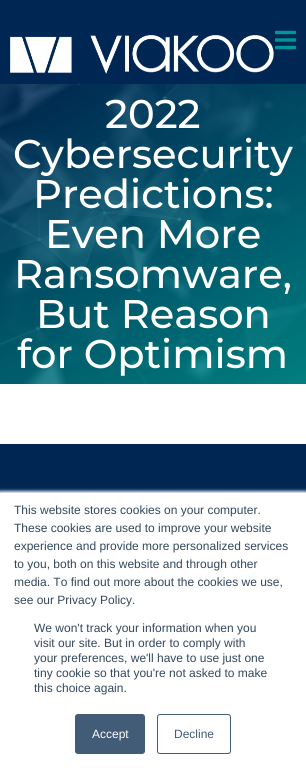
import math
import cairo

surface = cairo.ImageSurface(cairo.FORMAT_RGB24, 306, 774)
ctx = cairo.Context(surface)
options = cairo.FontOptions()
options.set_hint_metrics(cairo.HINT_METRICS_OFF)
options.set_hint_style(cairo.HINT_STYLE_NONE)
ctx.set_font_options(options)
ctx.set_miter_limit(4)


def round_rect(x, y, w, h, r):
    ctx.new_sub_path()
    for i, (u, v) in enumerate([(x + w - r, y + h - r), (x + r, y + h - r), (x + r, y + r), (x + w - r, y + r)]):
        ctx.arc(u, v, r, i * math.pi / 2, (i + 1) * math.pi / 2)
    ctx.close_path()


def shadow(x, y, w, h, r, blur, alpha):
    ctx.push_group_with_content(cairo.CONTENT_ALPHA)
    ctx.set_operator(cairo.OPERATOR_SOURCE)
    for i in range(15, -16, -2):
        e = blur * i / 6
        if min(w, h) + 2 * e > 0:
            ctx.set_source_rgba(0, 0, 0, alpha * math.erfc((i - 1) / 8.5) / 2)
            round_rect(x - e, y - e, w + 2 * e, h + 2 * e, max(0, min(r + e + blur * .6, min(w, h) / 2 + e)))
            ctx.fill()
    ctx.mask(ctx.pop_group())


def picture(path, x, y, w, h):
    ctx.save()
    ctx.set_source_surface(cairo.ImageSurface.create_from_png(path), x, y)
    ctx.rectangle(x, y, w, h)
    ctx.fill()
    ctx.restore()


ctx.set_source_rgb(1, 1, 1)
ctx.paint()
ctx.set_source_rgb(0, 0.153, 0.325)
ctx.rectangle(0, 0, 306, 84)
ctx.fill()
picture("img1.png", 10, 35, 264, 39)
picture("img2.png", 275, 30, 21, 20)
picture("img3.png", 0, 84, 306, 300)
ctx.select_font_face("Montserrat Medium")
ctx.set_font_size(40)
ctx.set_source_rgb(1, 1, 1)
ctx.move_to(105, 128)
ctx.show_text("2022")
ctx.move_to(13, 168)
ctx.show_text("Cybersecurity")
ctx.move_to(33, 208)
ctx.show_text("Predictions:")
ctx.move_to(45, 248)
ctx.show_text("Even More")
ctx.move_to(14, 288)
ctx.show_text("Ransomware,")
ctx.move_to(36, 328)
ctx.show_text("But Reason")
ctx.move_to(17, 368)
ctx.show_text("for Optimism")
ctx.set_source_rgb(0, 0.153, 0.325)
ctx.rectangle(0, 444, 306, 48)
ctx.fill()
ctx.set_source_rgb(0.918, 0.941, 0.965)
shadow(0, 491, 306, 282, 0, 1.5, 1)
ctx.set_source_rgb(1, 1, 1)
ctx.rectangle(0, 493, 306, 281)
ctx.fill()
ctx.set_source_rgb(0.796, 0.839, 0.886)
ctx.rectangle(0, 492, 306, 1)
ctx.fill()
ctx.select_font_face("Liberation Sans")
ctx.set_font_size(12)
ctx.set_source_rgb(0.2, 0.278, 0.357)
ctx.move_to(14, 514)
ctx.show_text("This website stores cookies on your computer.")
ctx.move_to(14, 532)
ctx.show_text("These cookies are used to improve your website")
ctx.move_to(14, 550)
ctx.show_text("experience and provide more personalized services")
ctx.move_to(14, 568)
ctx.show_text("to you, both on this website and through other")
ctx.move_to(14, 586)
ctx.show_text("media. To find out more about the cookies we use,")
ctx.move_to(14, 604)
ctx.show_text("see our Privacy Policy.")
ctx.move_to(34, 632)
ctx.show_text("We won't track your information when you")
ctx.move_to(34, 647)
ctx.show_text("visit our site. But in order to comply with")
ctx.move_to(34, 662)
ctx.show_text("your preferences, we'll have to use just one")
ctx.move_to(34, 677)
ctx.show_text("tiny cookie so that you're not asked to make")
ctx.move_to(34, 692)
ctx.show_text("this choice again.")
ctx.set_source_rgb(0.259, 0.357, 0.463)
round_rect(75.5, 714.5, 69, 39, 2.5)
ctx.fill_preserve()
ctx.set_line_width(1)
ctx.stroke()
ctx.set_source_rgb(1, 1, 1)
ctx.move_to(92, 738)
ctx.show_text("Accept")
round_rect(157.5, 714.5, 73, 39, 2.5)
ctx.set_source_rgb(0.259, 0.357, 0.463)
ctx.stroke()
ctx.move_to(174, 738)
ctx.show_text("Decline")
surface.write_to_png("page.png")
